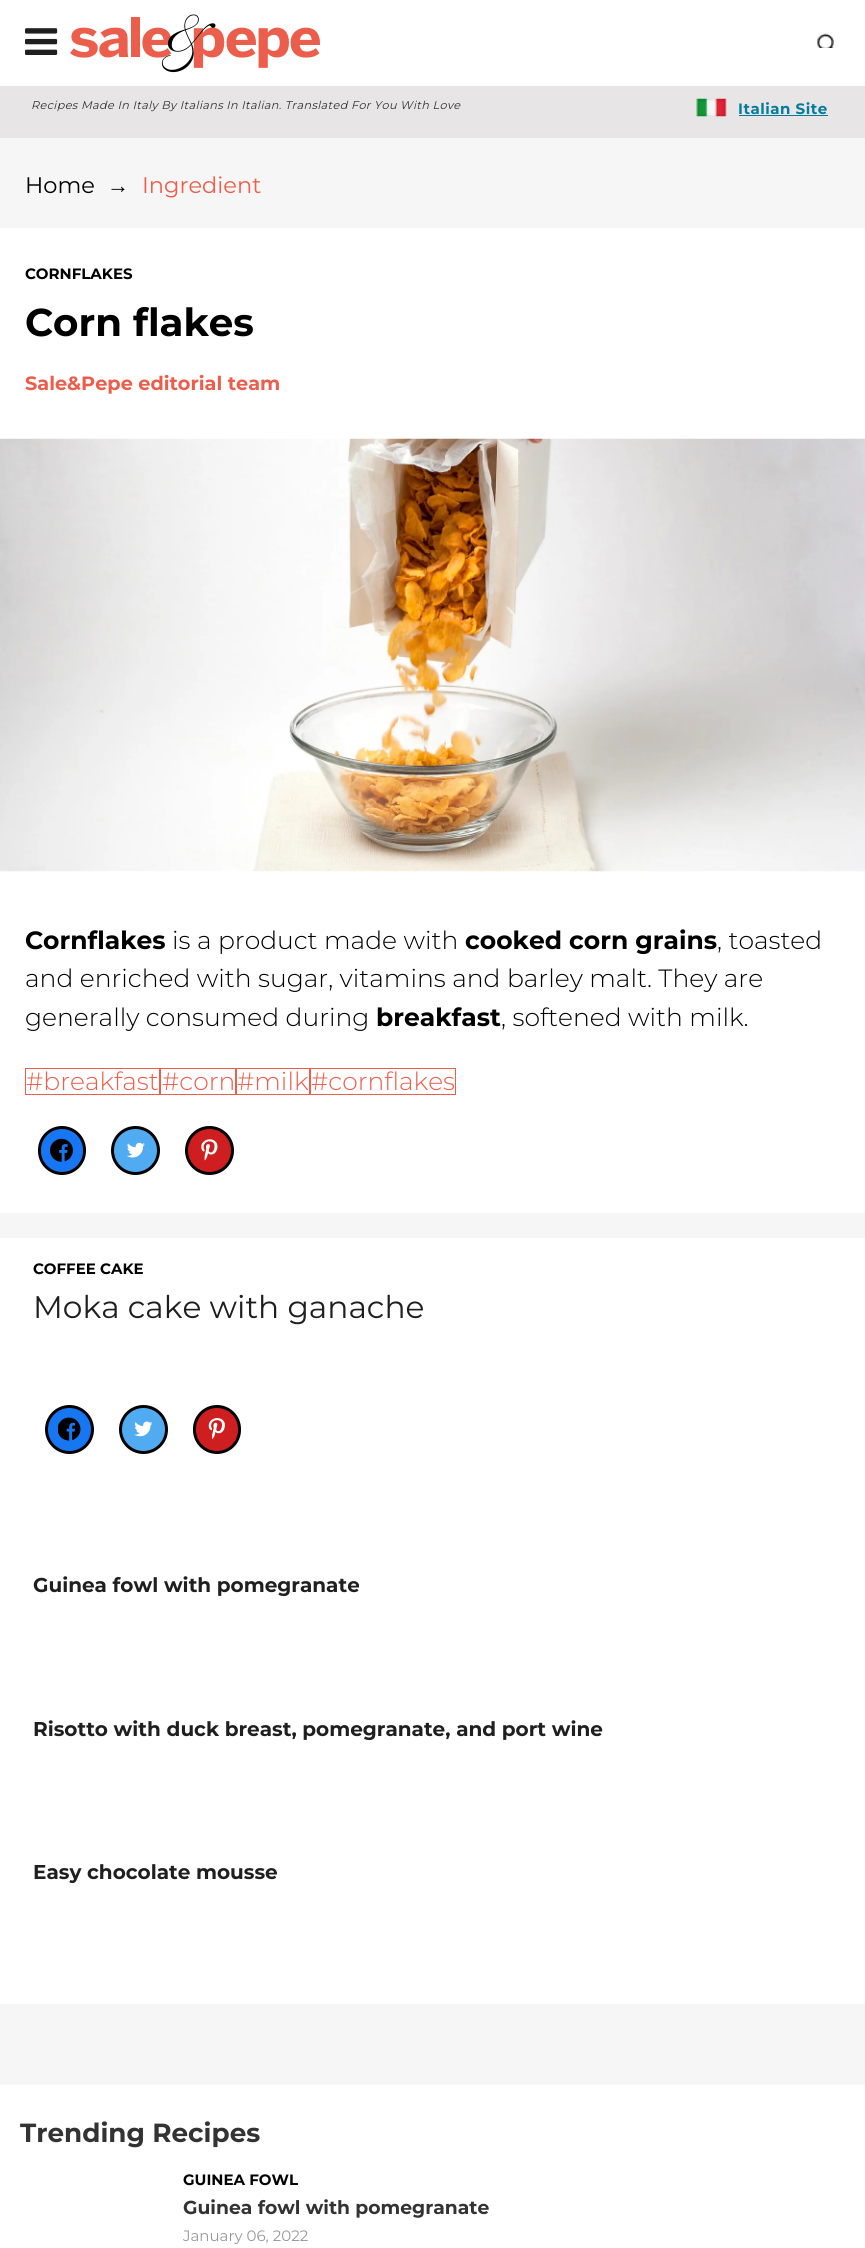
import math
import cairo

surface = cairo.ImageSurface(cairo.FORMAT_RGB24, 865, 2248)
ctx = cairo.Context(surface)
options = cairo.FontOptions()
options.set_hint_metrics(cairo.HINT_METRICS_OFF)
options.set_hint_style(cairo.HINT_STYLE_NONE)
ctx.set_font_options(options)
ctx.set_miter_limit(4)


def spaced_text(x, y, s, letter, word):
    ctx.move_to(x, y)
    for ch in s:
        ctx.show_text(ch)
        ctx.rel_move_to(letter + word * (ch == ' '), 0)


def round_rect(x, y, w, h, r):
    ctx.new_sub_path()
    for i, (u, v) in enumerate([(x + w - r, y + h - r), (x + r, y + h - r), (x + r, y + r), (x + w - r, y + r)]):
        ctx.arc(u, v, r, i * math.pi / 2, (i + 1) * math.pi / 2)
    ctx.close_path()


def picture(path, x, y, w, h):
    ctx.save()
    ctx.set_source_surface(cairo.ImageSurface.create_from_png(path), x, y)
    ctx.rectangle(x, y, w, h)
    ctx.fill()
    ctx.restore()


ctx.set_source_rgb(0.961, 0.961, 0.961)
ctx.paint()
ctx.set_source_rgb(1, 1, 1)
ctx.rectangle(0, 0, 865, 86)
ctx.fill()
picture("img1.png", 25, 28, 33, 27)
picture("img2.png", 70, 14, 250, 59)
picture("img3.png", 817, 33, 17, 15)
ctx.set_source_rgb(0.906, 0.898, 0.898)
ctx.rectangle(0, 86, 865, 52)
ctx.fill()
ctx.select_font_face("Montserrat", cairo.FONT_SLANT_ITALIC)
ctx.set_font_size(11.25)
ctx.set_source_rgb(0.2, 0.2, 0.2)
spaced_text(31, 109, "Recipes Made In Italy By Italians In Italian. Translated For You With Love", 0.35, 0)
picture("img4.png", 696, 98, 31, 19)
ctx.select_font_face("Montserrat", cairo.FONT_SLANT_NORMAL, cairo.FONT_WEIGHT_BOLD)
ctx.set_font_size(15)
ctx.set_source_rgb(0.008, 0.482, 0.612)
spaced_text(738, 114, "Italian Site", 0.5, 0)
ctx.rectangle(739, 115, 89, 1)
ctx.fill()
ctx.select_font_face("Montserrat")
ctx.set_font_size(22.5)
ctx.set_source_rgb(0, 0, 0)
ctx.move_to(25, 193)
ctx.show_text("Home")
ctx.select_font_face("Liberation Sans")
ctx.set_font_size(22)
ctx.move_to(107, 193)
ctx.show_text("→")
ctx.select_font_face("Montserrat")
ctx.set_font_size(22.5)
ctx.set_source_rgb(0.922, 0.369, 0.294)
ctx.move_to(142, 193)
ctx.show_text("Ingredient")
ctx.set_source_rgb(1, 1, 1)
ctx.rectangle(0, 228, 865, 985)
ctx.fill()
ctx.select_font_face("Montserrat", cairo.FONT_SLANT_NORMAL, cairo.FONT_WEIGHT_BOLD)
ctx.set_font_size(15)
ctx.set_source_rgb(0, 0, 0)
ctx.move_to(25, 279)
ctx.show_text("CORNFLAKES")
ctx.set_font_size(38.75)
ctx.move_to(25, 336)
ctx.show_text("Corn flakes")
ctx.set_font_size(19.25)
ctx.set_source_rgb(0.922, 0.369, 0.294)
ctx.move_to(25, 390)
ctx.show_text("Sale&Pepe editorial team")
picture("img5.png", 0, 438, 865, 434)
ctx.set_font_size(25)
ctx.set_source_rgb(0, 0, 0)
ctx.move_to(25, 949)
ctx.show_text("Cornflakes")
ctx.select_font_face("Montserrat Light")
ctx.move_to(172, 949)
ctx.show_text("is a product made with")
ctx.select_font_face("Montserrat", cairo.FONT_SLANT_NORMAL, cairo.FONT_WEIGHT_BOLD)
ctx.move_to(465, 949)
ctx.show_text("cooked corn grains")
ctx.select_font_face("Montserrat Light")
ctx.move_to(717, 949)
ctx.show_text(", toasted")
ctx.move_to(25, 987)
ctx.show_text("and enriched with sugar, vitamins and barley malt. They are")
ctx.move_to(25, 1026)
ctx.show_text("generally consumed during")
ctx.select_font_face("Montserrat", cairo.FONT_SLANT_NORMAL, cairo.FONT_WEIGHT_BOLD)
ctx.move_to(376, 1026)
ctx.show_text("breakfast")
ctx.select_font_face("Montserrat Light")
ctx.move_to(501, 1026)
ctx.show_text(", softened with milk.")
ctx.rectangle(25.5, 1068.5, 134, 26)
ctx.set_source_rgb(0.922, 0.369, 0.294)
ctx.set_line_width(1)
ctx.stroke()
ctx.move_to(26, 1090)
ctx.show_text("#breakfast")
ctx.rectangle(160.5, 1068.5, 75, 26)
ctx.stroke()
ctx.move_to(162, 1090)
ctx.show_text("#corn")
ctx.rectangle(236.5, 1068.5, 73, 26)
ctx.stroke()
ctx.move_to(237, 1090)
ctx.show_text("#milk")
ctx.rectangle(310.5, 1068.5, 145, 26)
ctx.stroke()
ctx.move_to(311, 1090)
ctx.show_text("#cornflakes")
ctx.set_source_rgb(0.09, 0.467, 0.949)
round_rect(39.5, 1127.5, 45, 46, 22.5)
ctx.fill_preserve()
ctx.set_source_rgb(0, 0, 0)
ctx.set_line_width(3)
ctx.stroke()
picture("img6.png", 50, 1138, 23, 24)
ctx.set_source_rgb(0.314, 0.671, 0.945)
ctx.arc(135.5, 1150.5, 23, 0, 2 * math.pi)
ctx.fill_preserve()
ctx.set_source_rgb(0, 0, 0)
ctx.stroke()
picture("img7.png", 127, 1142, 18, 16)
ctx.set_source_rgb(0.808, 0.118, 0.122)
ctx.arc(209.5, 1150.5, 23, 0, 2 * math.pi)
ctx.fill_preserve()
ctx.set_source_rgb(0, 0, 0)
ctx.stroke()
picture("img8.png", 201, 1139, 17, 22)
ctx.set_source_rgb(1, 1, 1)
ctx.rectangle(0, 1238, 865, 766)
ctx.fill()
ctx.select_font_face("Montserrat", cairo.FONT_SLANT_NORMAL, cairo.FONT_WEIGHT_BOLD)
ctx.set_font_size(15)
ctx.set_source_rgb(0, 0, 0)
ctx.move_to(33, 1274)
ctx.show_text("COFFEE CAKE")
ctx.select_font_face("Montserrat")
ctx.set_font_size(31.25)
ctx.set_source_rgb(0.122, 0.122, 0.122)
ctx.move_to(33, 1318)
ctx.show_text("Moka cake with ganache")
ctx.set_source_rgb(0.09, 0.467, 0.949)
ctx.new_path()
ctx.arc(69.5, 1429.5, 23, 0, 2 * math.pi)
ctx.fill_preserve()
ctx.set_source_rgb(0, 0, 0)
ctx.stroke()
picture("img9.png", 58, 1417, 23, 24)
ctx.set_source_rgb(0.314, 0.671, 0.945)
ctx.arc(143.5, 1429.5, 23, 0, 2 * math.pi)
ctx.fill_preserve()
ctx.set_source_rgb(0, 0, 0)
ctx.stroke()
picture("img10.png", 134, 1421, 19, 16)
ctx.set_source_rgb(0.808, 0.118, 0.122)
round_rect(194.5, 1406.5, 45, 46, 22.5)
ctx.fill_preserve()
ctx.set_source_rgb(0, 0, 0)
ctx.stroke()
picture("img11.png", 208, 1418, 17, 22)
ctx.select_font_face("Montserrat", cairo.FONT_SLANT_NORMAL, cairo.FONT_WEIGHT_BOLD)
ctx.set_font_size(20)
ctx.set_source_rgb(0.122, 0.122, 0.122)
ctx.move_to(33, 1592)
ctx.show_text("Guinea fowl with pomegranate")
ctx.move_to(33, 1736)
ctx.show_text("Risotto with duck breast, pomegranate, and port wine")
ctx.move_to(33, 1879)
ctx.show_text("Easy chocolate mousse")
ctx.set_source_rgb(1, 1, 1)
ctx.rectangle(0, 2085, 865, 163)
ctx.fill()
ctx.set_font_size(26.25)
ctx.set_source_rgb(0.2, 0.2, 0.2)
ctx.move_to(20, 2142)
ctx.show_text("Trending Recipes")
ctx.set_font_size(15)
ctx.set_source_rgb(0, 0, 0)
ctx.move_to(183, 2185)
ctx.show_text("GUINEA FOWL")
ctx.set_font_size(18.75)
ctx.set_source_rgb(0.2, 0.2, 0.2)
ctx.move_to(183, 2214)
ctx.show_text("Guinea fowl with pomegranate")
ctx.select_font_face("Montserrat")
ctx.set_font_size(15)
ctx.set_source_rgb(0.596, 0.596, 0.596)
ctx.move_to(183, 2241)
ctx.show_text("January 06, 2022")
surface.write_to_png("page.png")
